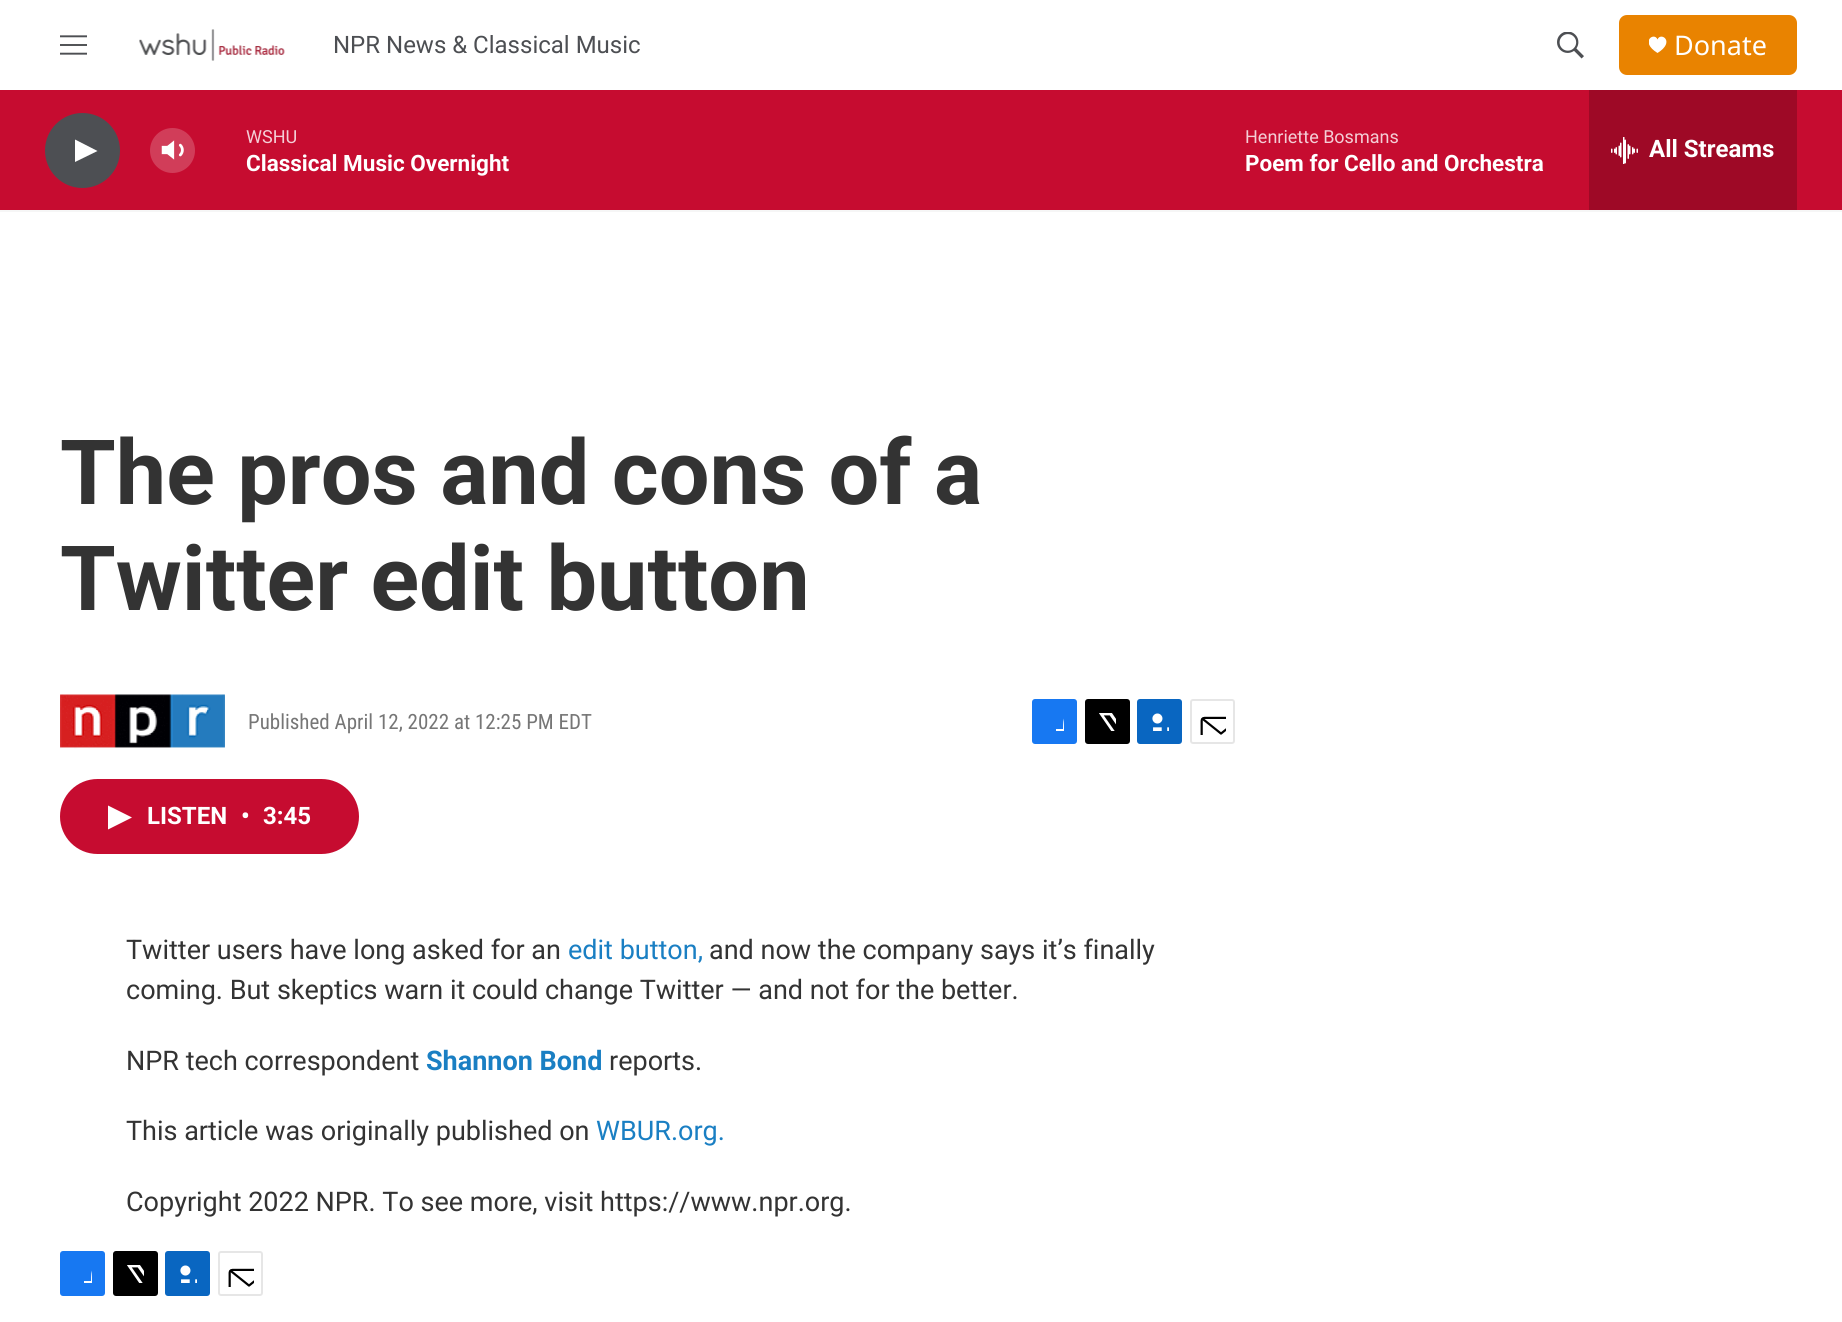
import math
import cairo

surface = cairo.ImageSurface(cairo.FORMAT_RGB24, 1842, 1322)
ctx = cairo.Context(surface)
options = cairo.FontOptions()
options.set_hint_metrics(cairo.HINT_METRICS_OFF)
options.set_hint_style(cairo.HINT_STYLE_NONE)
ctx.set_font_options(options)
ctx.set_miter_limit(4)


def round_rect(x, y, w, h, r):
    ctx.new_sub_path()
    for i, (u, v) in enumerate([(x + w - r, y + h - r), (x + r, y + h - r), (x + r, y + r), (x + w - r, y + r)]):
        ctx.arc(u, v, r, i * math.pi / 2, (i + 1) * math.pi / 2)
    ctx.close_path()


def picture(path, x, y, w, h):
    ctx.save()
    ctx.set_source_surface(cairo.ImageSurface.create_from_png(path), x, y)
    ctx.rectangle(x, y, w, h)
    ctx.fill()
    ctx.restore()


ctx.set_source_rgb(1, 1, 1)
ctx.paint()
ctx.set_source_rgb(0.961, 0.961, 0.961)
ctx.rectangle(0, 210, 1842, 2)
ctx.fill()
picture("img1.png", 60, 35, 27, 20)
picture("img2.png", 139, 29, 146, 32)
ctx.select_font_face("Roboto")
ctx.set_font_size(24)
ctx.set_source_rgb(0.302, 0.31, 0.325)
ctx.move_to(333, 53)
ctx.show_text("NPR News & Classical Music")
picture("img3.png", 1557, 32, 27, 27)
ctx.set_source_rgb(0.914, 0.514, 0)
round_rect(1619, 15, 178, 60, 8)
ctx.fill()
ctx.save()
ctx.rectangle(1649, 36, 18, 18)
ctx.clip()
ctx.set_source_rgb(1, 1, 1)
ctx.new_path()
ctx.move_to(1657.5, 39.5)
ctx.curve_to(1654.5, 31.5, 1639, 41.5, 1657.5, 53)
ctx.curve_to(1676, 41.5, 1660.5, 31.5, 1657.5, 39.5)
ctx.close_path()
ctx.fill()
ctx.restore()
ctx.select_font_face("Noto Sans")
ctx.set_font_size(27)
ctx.set_source_rgb(1, 1, 1)
ctx.move_to(1674, 55)
ctx.show_text("Donate")
ctx.set_source_rgb(0.776, 0.047, 0.188)
ctx.rectangle(0, 90, 1842, 120)
ctx.fill()
ctx.set_source_rgb(0.302, 0.31, 0.325)
ctx.arc(82.5, 150.5, 37.5, 0, 2 * math.pi)
ctx.fill()
ctx.set_source_rgb(1, 1, 1)
ctx.new_path()
ctx.move_to(75, 139.5)
ctx.line_to(97.5, 151)
ctx.line_to(75, 162)
ctx.close_path()
ctx.fill()
picture("img4.png", 161, 140, 23, 20)
ctx.set_source_rgba(1, 1, 1, 0.2)
ctx.arc(172.5, 150.5, 22.5, 0, 2 * math.pi)
ctx.fill()
ctx.select_font_face("Roboto")
ctx.set_font_size(18)
ctx.set_source_rgb(0.957, 0.808, 0.839)
ctx.move_to(246, 143)
ctx.show_text("WSHU")
ctx.select_font_face("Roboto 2", cairo.FONT_SLANT_NORMAL, cairo.FONT_WEIGHT_BOLD)
ctx.set_font_size(22.5)
ctx.set_source_rgb(1, 1, 1)
ctx.move_to(246, 171)
ctx.show_text("Classical Music Overnight")
ctx.select_font_face("Roboto")
ctx.set_font_size(18)
ctx.set_source_rgb(0.957, 0.808, 0.839)
ctx.move_to(1245, 143)
ctx.show_text("Henriette Bosmans")
ctx.select_font_face("Roboto 2", cairo.FONT_SLANT_NORMAL, cairo.FONT_WEIGHT_BOLD)
ctx.set_font_size(22.5)
ctx.set_source_rgb(1, 1, 1)
ctx.move_to(1245, 171)
ctx.show_text("Poem for Cello and Orchestra")
ctx.set_source_rgb(0.62, 0.039, 0.149)
ctx.rectangle(1589, 90, 208, 120)
ctx.fill()
picture("img5.png", 1611, 137, 27, 27)
ctx.set_font_size(24)
ctx.set_source_rgb(1, 1, 1)
ctx.move_to(1649, 157)
ctx.show_text("All Streams")
ctx.select_font_face("Roboto", cairo.FONT_SLANT_NORMAL, cairo.FONT_WEIGHT_BOLD)
ctx.set_font_size(90)
ctx.set_source_rgb(0.2, 0.2, 0.2)
ctx.move_to(60, 504)
ctx.show_text("The pros and cons of a")
ctx.move_to(60, 610)
ctx.show_text("Twitter edit button")
picture("img6.png", 60, 694, 165, 55)
ctx.select_font_face("Roboto Condensed")
ctx.set_font_size(21)
ctx.set_source_rgb(0.463, 0.463, 0.463)
ctx.move_to(248, 729)
ctx.show_text("Published April 12, 2022 at 12:25 PM EDT")
ctx.set_source_rgb(0.09, 0.471, 0.949)
round_rect(1032, 699, 45, 45, 3)
ctx.fill()
ctx.save()
ctx.rectangle(1046, 713, 18, 18)
ctx.clip()
ctx.set_source_rgb(1, 1, 1)
ctx.new_path()
ctx.move_to(1070, 744)
ctx.line_to(1063, 744)
ctx.line_to(1063, 737)
ctx.line_to(1056, 737)
ctx.line_to(1056, 729)
ctx.line_to(1063, 729)
ctx.curve_to(1063, 717.5, 1064, 711.5, 1077, 713)
ctx.line_to(1077, 720)
ctx.curve_to(1069, 720, 1070, 722.5, 1070, 729)
ctx.line_to(1077, 729)
ctx.line_to(1076, 737)
ctx.line_to(1070, 737)
ctx.close_path()
ctx.fill()
ctx.restore()
ctx.set_source_rgb(0, 0, 0)
round_rect(1085, 699, 45, 45, 3)
ctx.fill()
picture("img7.png", 1099, 713, 17, 18)
ctx.set_source_rgb(0.039, 0.4, 0.757)
round_rect(1137, 699, 45, 45, 3)
ctx.fill()
picture("img8.png", 1152, 713, 17, 18)
round_rect(1191, 700, 43, 43, 2)
ctx.set_source_rgb(0.902, 0.902, 0.902)
ctx.stroke()
picture("img9.png", 1200, 716, 26, 19)
ctx.set_source_rgb(0.776, 0.047, 0.188)
round_rect(60, 779, 299, 75, 37.5)
ctx.fill()
ctx.set_source_rgb(1, 1, 1)
ctx.new_path()
ctx.move_to(108, 805.5)
ctx.line_to(132, 817.5)
ctx.line_to(108, 829.5)
ctx.close_path()
ctx.fill()
ctx.select_font_face("Roboto 2", cairo.FONT_SLANT_NORMAL, cairo.FONT_WEIGHT_BOLD)
ctx.set_font_size(24)
ctx.move_to(147, 824)
ctx.show_text("LISTEN")
ctx.move_to(241, 824)
ctx.show_text("•")
ctx.move_to(263, 824)
ctx.show_text("3:45")
ctx.select_font_face("Roboto")
ctx.set_font_size(27)
ctx.set_source_rgb(0.2, 0.2, 0.2)
ctx.move_to(126, 959)
ctx.show_text("Twitter users have long asked for an")
ctx.set_source_rgb(0.102, 0.498, 0.765)
ctx.move_to(568, 959)
ctx.show_text("edit button,")
ctx.set_source_rgb(0.2, 0.2, 0.2)
ctx.move_to(709, 959)
ctx.show_text("and now the company says it’s finally")
ctx.move_to(126, 999)
ctx.show_text("coming. But skeptics warn it could change Twitter — and not for the better.")
ctx.move_to(126, 1070)
ctx.show_text("NPR tech correspondent")
ctx.select_font_face("Roboto 2", cairo.FONT_SLANT_NORMAL, cairo.FONT_WEIGHT_BOLD)
ctx.set_source_rgb(0.102, 0.498, 0.765)
ctx.move_to(426, 1070)
ctx.show_text("Shannon Bond")
ctx.select_font_face("Roboto")
ctx.set_source_rgb(0.2, 0.2, 0.2)
ctx.move_to(609, 1070)
ctx.show_text("reports.")
ctx.move_to(126, 1140)
ctx.show_text("This article was originally published on")
ctx.set_source_rgb(0.102, 0.498, 0.765)
ctx.move_to(596, 1140)
ctx.show_text("WBUR.org.")
ctx.set_source_rgb(0.2, 0.2, 0.2)
ctx.move_to(126, 1211)
ctx.show_text("Copyright 2022 NPR. To see more, visit https://www.npr.org.")
ctx.set_source_rgb(0.09, 0.471, 0.949)
round_rect(60, 1251, 45, 45, 3)
ctx.fill()
ctx.save()
ctx.rectangle(74, 1265, 18, 18)
ctx.clip()
ctx.set_source_rgb(1, 1, 1)
ctx.new_path()
ctx.move_to(98, 1296)
ctx.line_to(91, 1296)
ctx.line_to(91, 1289)
ctx.line_to(84, 1289)
ctx.line_to(84, 1281)
ctx.line_to(91, 1281)
ctx.curve_to(91, 1269.5, 92, 1263.5, 105, 1265)
ctx.line_to(105, 1272)
ctx.curve_to(97, 1272, 98, 1274.5, 98, 1281)
ctx.line_to(105, 1281)
ctx.line_to(104, 1289)
ctx.line_to(98, 1289)
ctx.close_path()
ctx.fill()
ctx.restore()
ctx.set_source_rgb(0, 0, 0)
round_rect(113, 1251, 45, 45, 3)
ctx.fill()
picture("img7.png", 127, 1265, 17, 18)
ctx.set_source_rgb(0.039, 0.4, 0.757)
round_rect(165, 1251, 45, 45, 3)
ctx.fill()
picture("img8.png", 180, 1265, 17, 18)
round_rect(219, 1252, 43, 43, 2)
ctx.set_source_rgb(0.902, 0.902, 0.902)
ctx.stroke()
picture("img9.png", 228, 1268, 26, 19)
surface.write_to_png("page.png")
